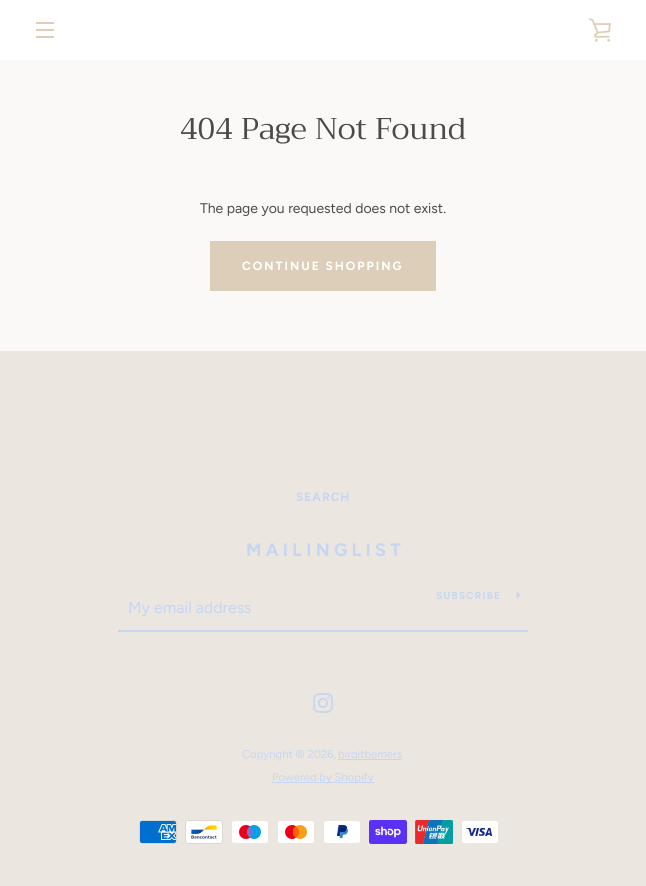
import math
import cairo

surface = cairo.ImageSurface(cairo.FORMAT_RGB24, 646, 886)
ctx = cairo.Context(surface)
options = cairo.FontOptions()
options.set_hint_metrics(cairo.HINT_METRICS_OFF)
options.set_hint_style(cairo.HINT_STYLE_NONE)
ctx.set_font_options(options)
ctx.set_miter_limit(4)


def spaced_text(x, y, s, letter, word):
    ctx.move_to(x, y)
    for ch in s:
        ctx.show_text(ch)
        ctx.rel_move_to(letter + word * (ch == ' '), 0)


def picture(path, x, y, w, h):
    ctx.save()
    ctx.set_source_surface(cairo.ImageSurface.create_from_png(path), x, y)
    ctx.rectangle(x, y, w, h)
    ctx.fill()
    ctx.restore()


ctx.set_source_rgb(0.918, 0.906, 0.878)
ctx.paint()
ctx.set_source_rgb(0.98, 0.976, 0.965)
ctx.rectangle(0, 60, 646, 291)
ctx.fill()
ctx.set_source_rgb(1, 1, 1)
ctx.rectangle(0, 0, 646, 60)
ctx.fill()
ctx.set_source_rgb(0.867, 0.808, 0.725)
ctx.rectangle(36, 22, 18, 2)
ctx.fill()
ctx.rectangle(36, 29, 18, 2)
ctx.fill()
ctx.rectangle(36, 36, 18, 2)
ctx.fill()
picture("img1.png", 589, 18, 22, 24)
ctx.select_font_face("Trirong")
ctx.set_font_size(30)
ctx.set_source_rgb(0.29, 0.29, 0.29)
ctx.move_to(180, 139)
ctx.show_text("404 Page Not Found")
ctx.select_font_face("Figtree")
ctx.set_font_size(14)
ctx.move_to(200, 213)
ctx.show_text("The page you requested does not exist.")
ctx.set_source_rgb(0.867, 0.808, 0.725)
ctx.rectangle(210, 241, 226, 50)
ctx.fill()
ctx.select_font_face("Figtree", cairo.FONT_SLANT_NORMAL, cairo.FONT_WEIGHT_BOLD)
ctx.set_font_size(12)
ctx.set_source_rgb(1, 1, 1)
spaced_text(242, 270, "CONTINUE SHOPPING", 2, 0)
ctx.set_source_rgb(0.776, 0.835, 0.949)
spaced_text(296, 501, "SEARCH", 1, 0)
ctx.set_font_size(18)
ctx.move_to(246, 556)
ctx.show_text("M A I L I N G L I S T")
ctx.rectangle(118, 630, 410, 2)
ctx.fill()
ctx.set_font_size(10)
spaced_text(436, 599, "SUBSCRIBE", 1.25, 0)
ctx.new_path()
ctx.move_to(520.5, 595)
ctx.line_to(516.5, 598.5)
ctx.line_to(516.5, 591.5)
ctx.close_path()
ctx.fill()
ctx.select_font_face("Figtree")
ctx.set_font_size(16)
ctx.move_to(128, 613)
ctx.show_text("My email address")
picture("img2.png", 313, 693, 20, 20)
ctx.set_font_size(11.25)
ctx.move_to(242, 758)
ctx.show_text("Copyright © 2026,")
ctx.rectangle(338, 759, 64, 1)
ctx.fill()
ctx.move_to(338, 758)
ctx.show_text("birgitbemers.")
ctx.rectangle(272, 782, 102, 1)
ctx.fill()
ctx.move_to(272, 781)
ctx.show_text("Powered by Shopify")
picture("img3.png", 139, 820, 38, 24)
picture("img4.png", 185, 820, 38, 24)
picture("img5.png", 232, 821, 36, 22)
picture("img6.png", 278, 821, 36, 22)
picture("img7.png", 324, 821, 36, 22)
picture("img8.png", 369, 820, 38, 24)
picture("img9.png", 415, 820, 38, 24)
picture("img10.png", 462, 821, 36, 22)
surface.write_to_png("page.png")
